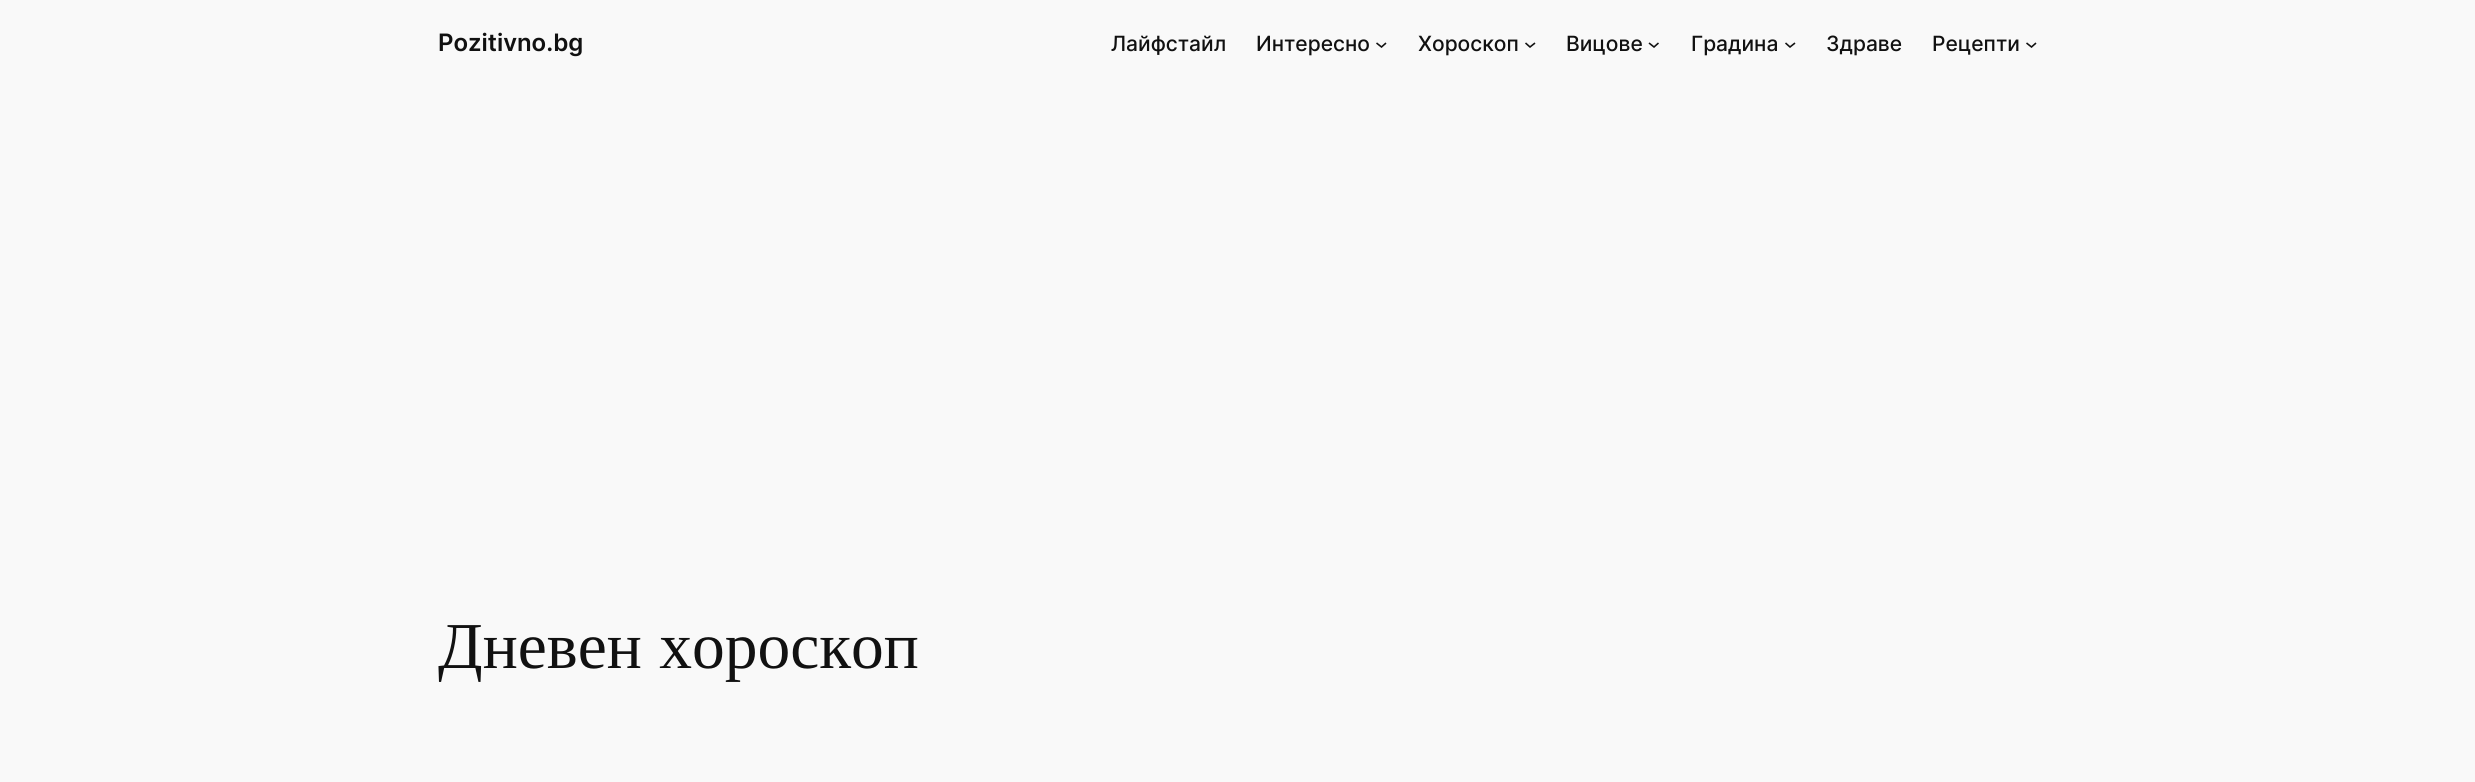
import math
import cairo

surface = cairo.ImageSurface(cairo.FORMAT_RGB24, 2475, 782)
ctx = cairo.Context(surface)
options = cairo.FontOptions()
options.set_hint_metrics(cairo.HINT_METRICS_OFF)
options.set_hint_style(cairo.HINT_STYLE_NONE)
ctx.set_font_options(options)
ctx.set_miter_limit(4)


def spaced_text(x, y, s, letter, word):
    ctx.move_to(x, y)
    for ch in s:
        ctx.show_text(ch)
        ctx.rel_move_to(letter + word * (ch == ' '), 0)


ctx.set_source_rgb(0.976, 0.976, 0.976)
ctx.paint()
ctx.select_font_face("Inter SemiBold")
ctx.set_font_size(24)
ctx.set_source_rgb(0.067, 0.067, 0.067)
ctx.move_to(438, 51)
ctx.show_text("Pozitivno.bg")
ctx.select_font_face("Inter Medium")
ctx.set_font_size(21)
ctx.move_to(1111, 51)
ctx.show_text("Лайфстайл")
ctx.move_to(1256, 51)
ctx.show_text("Интересно")
ctx.new_path()
ctx.move_to(1376.5, 43)
ctx.line_to(1381.5, 47)
ctx.line_to(1386, 43)
ctx.set_line_width(1.6)
ctx.stroke()
ctx.move_to(1418, 51)
ctx.show_text("Хороскоп")
ctx.new_path()
ctx.move_to(1525.5, 43)
ctx.line_to(1530, 47)
ctx.line_to(1535, 43)
ctx.stroke()
ctx.move_to(1566, 51)
ctx.show_text("Вицове")
ctx.new_path()
ctx.move_to(1649, 43)
ctx.line_to(1654, 47)
ctx.line_to(1658.5, 43)
ctx.stroke()
ctx.move_to(1691, 51)
ctx.show_text("Градина")
ctx.new_path()
ctx.move_to(1785.5, 43)
ctx.line_to(1790, 47)
ctx.line_to(1795, 43)
ctx.stroke()
ctx.move_to(1826, 51)
ctx.show_text("Здраве")
ctx.move_to(1932, 51)
ctx.show_text("Рецепти")
ctx.new_path()
ctx.move_to(2026.5, 43)
ctx.line_to(2031.5, 47)
ctx.line_to(2036, 43)
ctx.stroke()
ctx.select_font_face("Liberation Serif")
ctx.set_font_size(65.5)
spaced_text(438, 668, "Дневен хороскоп", 0, 1)
surface.write_to_png("page.png")
